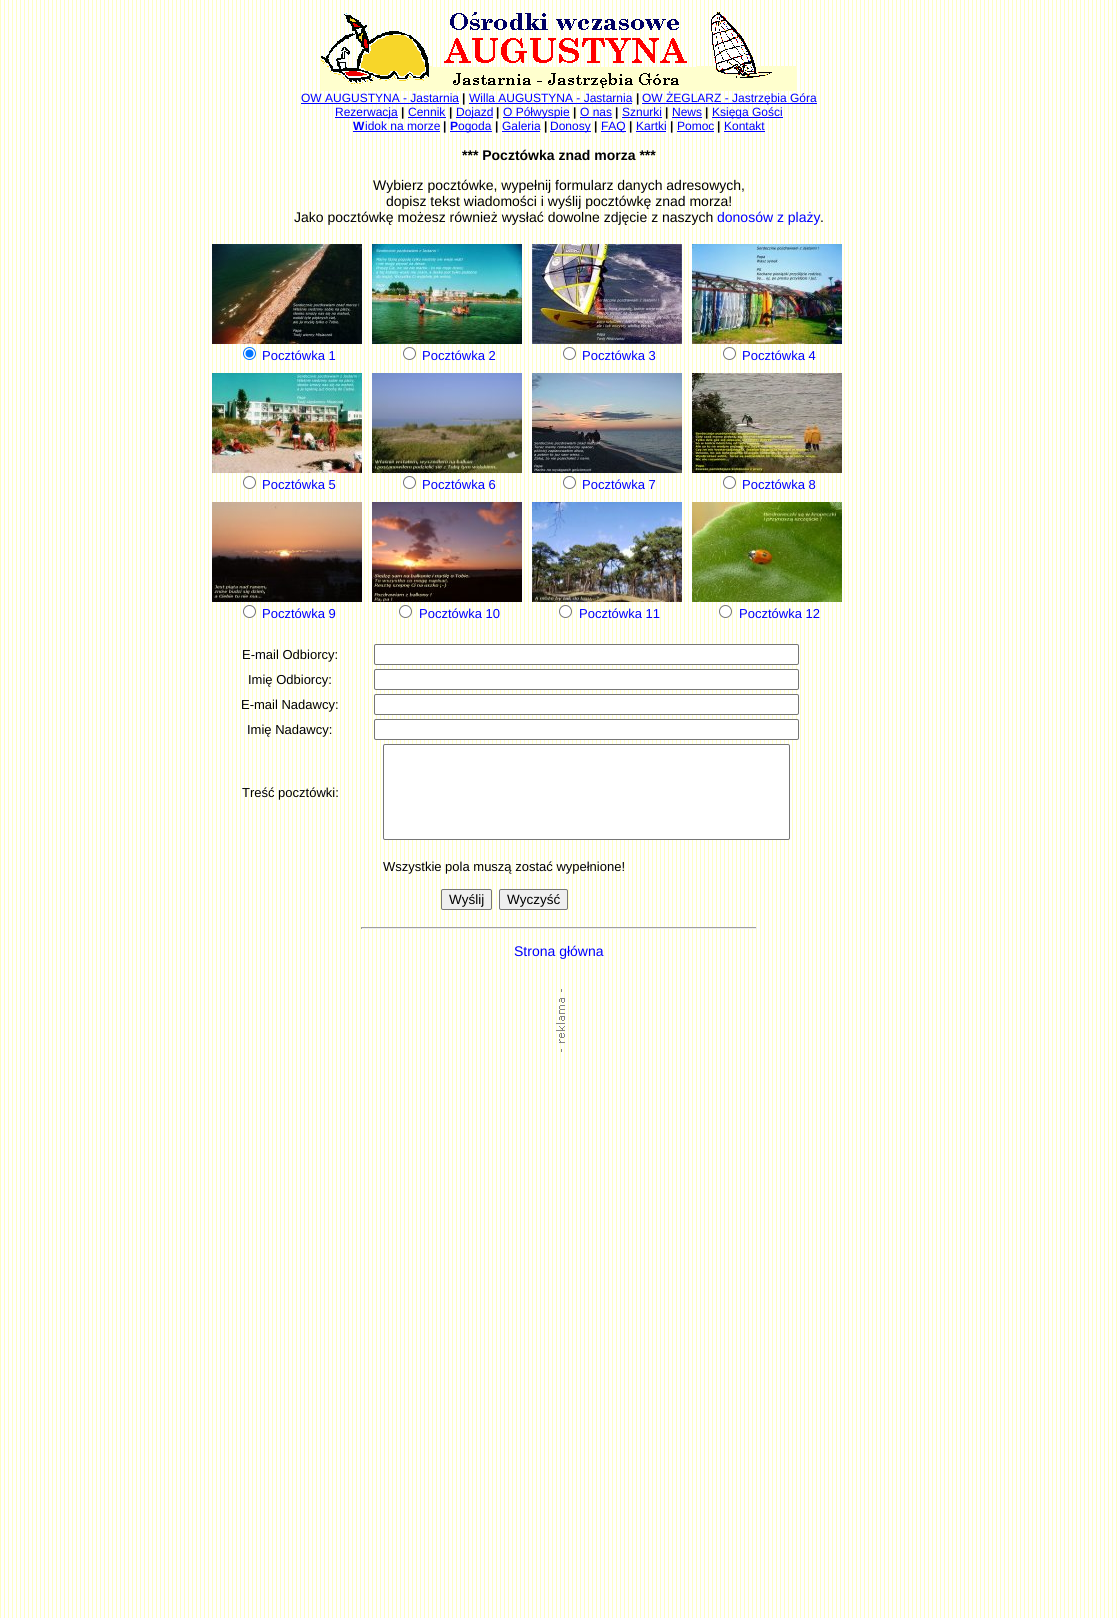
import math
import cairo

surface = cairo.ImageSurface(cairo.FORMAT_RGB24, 1118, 1618)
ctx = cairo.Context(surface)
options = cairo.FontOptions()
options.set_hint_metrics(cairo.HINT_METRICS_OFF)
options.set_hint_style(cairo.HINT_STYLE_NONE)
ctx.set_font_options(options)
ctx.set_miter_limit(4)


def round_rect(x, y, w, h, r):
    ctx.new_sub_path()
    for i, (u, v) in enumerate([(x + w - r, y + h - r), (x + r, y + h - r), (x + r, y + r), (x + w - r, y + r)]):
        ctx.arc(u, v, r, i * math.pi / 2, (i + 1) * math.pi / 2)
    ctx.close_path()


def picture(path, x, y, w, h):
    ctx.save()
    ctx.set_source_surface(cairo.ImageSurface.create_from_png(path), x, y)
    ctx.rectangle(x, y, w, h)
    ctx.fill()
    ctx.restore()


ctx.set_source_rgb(1, 1, 1)
ctx.paint()
picture("img1.png", 0, 0, 1118, 1618)
picture("img2.png", 321, 13, 112, 78)
picture("img3.png", 433, 12, 264, 79)
picture("img4.png", 697, 12, 100, 79)
ctx.select_font_face("Liberation Sans")
ctx.set_font_size(12)
ctx.set_source_rgb(0, 0, 1)
ctx.move_to(301, 102)
ctx.show_text("OW AUGUSTYNA - Jastarnia")
ctx.rectangle(301, 103, 158, 1)
ctx.fill()
ctx.select_font_face("Liberation Sans", cairo.FONT_SLANT_NORMAL, cairo.FONT_WEIGHT_BOLD)
ctx.set_source_rgb(0, 0, 0)
ctx.move_to(462, 102)
ctx.show_text("|")
ctx.select_font_face("Liberation Sans")
ctx.set_source_rgb(0, 0, 1)
ctx.move_to(469, 102)
ctx.show_text("Willa AUGUSTYNA - Jastarnia")
ctx.rectangle(469, 103, 163, 1)
ctx.fill()
ctx.select_font_face("Liberation Sans", cairo.FONT_SLANT_NORMAL, cairo.FONT_WEIGHT_BOLD)
ctx.set_source_rgb(0, 0, 0)
ctx.move_to(636, 102)
ctx.show_text("|")
ctx.set_source_rgb(0, 0, 1)
ctx.rectangle(642, 103, 175, 1)
ctx.fill()
ctx.select_font_face("Liberation Sans")
ctx.move_to(642, 102)
ctx.show_text("OW ŻEGLARZ - Jastrzębia Góra")
ctx.rectangle(335, 117, 63, 1)
ctx.fill()
ctx.move_to(335, 116)
ctx.show_text("Rezerwacja")
ctx.select_font_face("Liberation Sans", cairo.FONT_SLANT_NORMAL, cairo.FONT_WEIGHT_BOLD)
ctx.set_source_rgb(0, 0, 0)
ctx.move_to(401, 116)
ctx.show_text("|")
ctx.select_font_face("Liberation Sans")
ctx.set_source_rgb(0, 0, 1)
ctx.move_to(408, 116)
ctx.show_text("Cennik")
ctx.rectangle(408, 117, 38, 1)
ctx.fill()
ctx.select_font_face("Liberation Sans", cairo.FONT_SLANT_NORMAL, cairo.FONT_WEIGHT_BOLD)
ctx.set_source_rgb(0, 0, 0)
ctx.move_to(449, 116)
ctx.show_text("|")
ctx.set_source_rgb(0, 0, 1)
ctx.rectangle(456, 117, 37, 1)
ctx.fill()
ctx.select_font_face("Liberation Sans")
ctx.move_to(456, 116)
ctx.show_text("Dojazd")
ctx.select_font_face("Liberation Sans", cairo.FONT_SLANT_NORMAL, cairo.FONT_WEIGHT_BOLD)
ctx.set_source_rgb(0, 0, 0)
ctx.move_to(496, 116)
ctx.show_text("|")
ctx.set_source_rgb(0, 0, 1)
ctx.rectangle(503, 117, 67, 1)
ctx.fill()
ctx.select_font_face("Liberation Sans")
ctx.move_to(503, 116)
ctx.show_text("O Półwyspie")
ctx.select_font_face("Liberation Sans", cairo.FONT_SLANT_NORMAL, cairo.FONT_WEIGHT_BOLD)
ctx.set_source_rgb(0, 0, 0)
ctx.move_to(573, 116)
ctx.show_text("|")
ctx.select_font_face("Liberation Sans")
ctx.set_source_rgb(0, 0, 1)
ctx.move_to(580, 116)
ctx.show_text("O nas")
ctx.rectangle(580, 117, 32, 1)
ctx.fill()
ctx.select_font_face("Liberation Sans", cairo.FONT_SLANT_NORMAL, cairo.FONT_WEIGHT_BOLD)
ctx.set_source_rgb(0, 0, 0)
ctx.move_to(615, 116)
ctx.show_text("|")
ctx.select_font_face("Liberation Sans")
ctx.set_source_rgb(0, 0, 1)
ctx.move_to(622, 116)
ctx.show_text("Sznurki")
ctx.rectangle(622, 117, 40, 1)
ctx.fill()
ctx.select_font_face("Liberation Sans", cairo.FONT_SLANT_NORMAL, cairo.FONT_WEIGHT_BOLD)
ctx.set_source_rgb(0, 0, 0)
ctx.move_to(665, 116)
ctx.show_text("|")
ctx.select_font_face("Liberation Sans")
ctx.set_source_rgb(0, 0, 1)
ctx.move_to(672, 116)
ctx.show_text("News")
ctx.rectangle(672, 117, 30, 1)
ctx.fill()
ctx.select_font_face("Liberation Sans", cairo.FONT_SLANT_NORMAL, cairo.FONT_WEIGHT_BOLD)
ctx.set_source_rgb(0, 0, 0)
ctx.move_to(705, 116)
ctx.show_text("|")
ctx.set_source_rgb(0, 0, 1)
ctx.rectangle(712, 117, 71, 1)
ctx.fill()
ctx.select_font_face("Liberation Sans")
ctx.move_to(712, 116)
ctx.show_text("Księga Gości")
ctx.select_font_face("Liberation Sans", cairo.FONT_SLANT_NORMAL, cairo.FONT_WEIGHT_BOLD)
ctx.move_to(353, 130)
ctx.show_text("W")
ctx.select_font_face("Liberation Sans")
ctx.move_to(365, 130)
ctx.show_text("idok na morze")
ctx.rectangle(353, 131, 87, 1)
ctx.fill()
ctx.select_font_face("Liberation Sans", cairo.FONT_SLANT_NORMAL, cairo.FONT_WEIGHT_BOLD)
ctx.set_source_rgb(0, 0, 0)
ctx.move_to(443, 130)
ctx.show_text("|")
ctx.set_source_rgb(0, 0, 1)
ctx.move_to(450, 130)
ctx.show_text("P")
ctx.rectangle(450, 131, 42, 1)
ctx.fill()
ctx.select_font_face("Liberation Sans")
ctx.move_to(458, 130)
ctx.show_text("ogoda")
ctx.select_font_face("Liberation Sans", cairo.FONT_SLANT_NORMAL, cairo.FONT_WEIGHT_BOLD)
ctx.set_source_rgb(0, 0, 0)
ctx.move_to(495, 130)
ctx.show_text("|")
ctx.select_font_face("Liberation Sans")
ctx.set_source_rgb(0, 0, 1)
ctx.move_to(502, 130)
ctx.show_text("Galeria")
ctx.rectangle(502, 131, 38, 1)
ctx.fill()
ctx.select_font_face("Liberation Sans", cairo.FONT_SLANT_NORMAL, cairo.FONT_WEIGHT_BOLD)
ctx.set_source_rgb(0, 0, 0)
ctx.move_to(544, 130)
ctx.show_text("|")
ctx.set_source_rgb(0, 0, 1)
ctx.rectangle(550, 131, 41, 1)
ctx.fill()
ctx.select_font_face("Liberation Sans")
ctx.move_to(550, 130)
ctx.show_text("Donosy")
ctx.select_font_face("Liberation Sans", cairo.FONT_SLANT_NORMAL, cairo.FONT_WEIGHT_BOLD)
ctx.set_source_rgb(0, 0, 0)
ctx.move_to(594, 130)
ctx.show_text("|")
ctx.set_source_rgb(0, 0, 1)
ctx.rectangle(601, 131, 25, 1)
ctx.fill()
ctx.select_font_face("Liberation Sans")
ctx.move_to(601, 130)
ctx.show_text("FAQ")
ctx.select_font_face("Liberation Sans", cairo.FONT_SLANT_NORMAL, cairo.FONT_WEIGHT_BOLD)
ctx.set_source_rgb(0, 0, 0)
ctx.move_to(629, 130)
ctx.show_text("|")
ctx.select_font_face("Liberation Sans")
ctx.set_source_rgb(0, 0, 1)
ctx.move_to(636, 130)
ctx.show_text("Kartki")
ctx.rectangle(636, 131, 30, 1)
ctx.fill()
ctx.select_font_face("Liberation Sans", cairo.FONT_SLANT_NORMAL, cairo.FONT_WEIGHT_BOLD)
ctx.set_source_rgb(0, 0, 0)
ctx.move_to(670, 130)
ctx.show_text("|")
ctx.select_font_face("Liberation Sans")
ctx.set_source_rgb(0, 0, 1)
ctx.move_to(677, 130)
ctx.show_text("Pomoc")
ctx.rectangle(677, 131, 37, 1)
ctx.fill()
ctx.select_font_face("Liberation Sans", cairo.FONT_SLANT_NORMAL, cairo.FONT_WEIGHT_BOLD)
ctx.set_source_rgb(0, 0, 0)
ctx.move_to(717, 130)
ctx.show_text("|")
ctx.select_font_face("Liberation Sans")
ctx.set_source_rgb(0, 0, 1)
ctx.move_to(724, 130)
ctx.show_text("Kontakt")
ctx.rectangle(724, 131, 41, 1)
ctx.fill()
ctx.select_font_face("Liberation Sans", cairo.FONT_SLANT_NORMAL, cairo.FONT_WEIGHT_BOLD)
ctx.set_font_size(14)
ctx.set_source_rgb(0, 0, 0)
ctx.move_to(462, 160)
ctx.show_text("*** Pocztówka znad morza ***")
ctx.select_font_face("Liberation Sans")
ctx.move_to(373, 190)
ctx.show_text("Wybierz pocztówke, wypełnij formularz danych adresowych,")
ctx.move_to(386, 206)
ctx.show_text("dopisz tekst wiadomości i wyślij pocztówkę znad morza!")
ctx.move_to(294, 222)
ctx.show_text("Jako pocztówkę możesz również wysłać dowolne zdjęcie z naszych")
ctx.set_source_rgb(0, 0, 1)
ctx.move_to(717, 222)
ctx.show_text("donosów z plaży")
ctx.set_source_rgb(0, 0, 0)
ctx.move_to(820, 222)
ctx.show_text(".")
picture("img5.png", 212, 244, 150, 100)
ctx.set_source_rgb(1, 1, 1)
ctx.arc(249.5, 353.5, 6, 0, 2 * math.pi)
ctx.fill_preserve()
ctx.set_source_rgb(0, 0.459, 1)
ctx.set_line_width(1)
ctx.stroke()
ctx.arc(249.5, 353.5, 4, 0, 2 * math.pi)
ctx.fill()
ctx.set_font_size(13)
ctx.set_source_rgb(0, 0, 1)
ctx.move_to(262, 360)
ctx.show_text("Pocztówka 1")
picture("img6.png", 372, 244, 150, 100)
ctx.set_source_rgb(1, 1, 1)
ctx.arc(409.5, 353.5, 6, 0, 2 * math.pi)
ctx.fill_preserve()
ctx.set_source_rgb(0.463, 0.463, 0.463)
ctx.stroke()
ctx.set_source_rgb(0, 0, 1)
ctx.move_to(422, 360)
ctx.show_text("Pocztówka 2")
picture("img7.png", 532, 244, 150, 100)
ctx.set_source_rgb(1, 1, 1)
ctx.arc(569.5, 353.5, 6, 0, 2 * math.pi)
ctx.fill_preserve()
ctx.set_source_rgb(0.463, 0.463, 0.463)
ctx.stroke()
ctx.set_source_rgb(0, 0, 1)
ctx.move_to(582, 360)
ctx.show_text("Pocztówka 3")
picture("img8.png", 692, 244, 150, 100)
ctx.set_source_rgb(1, 1, 1)
ctx.arc(729.5, 353.5, 6, 0, 2 * math.pi)
ctx.fill_preserve()
ctx.set_source_rgb(0.463, 0.463, 0.463)
ctx.stroke()
ctx.set_source_rgb(0, 0, 1)
ctx.move_to(742, 360)
ctx.show_text("Pocztówka 4")
picture("img9.png", 212, 373, 150, 100)
ctx.set_source_rgb(1, 1, 1)
ctx.arc(249.5, 482.5, 6, 0, 2 * math.pi)
ctx.fill_preserve()
ctx.set_source_rgb(0.463, 0.463, 0.463)
ctx.stroke()
ctx.set_source_rgb(0, 0, 1)
ctx.move_to(262, 489)
ctx.show_text("Pocztówka 5")
picture("img10.png", 372, 373, 150, 100)
ctx.set_source_rgb(1, 1, 1)
ctx.arc(409.5, 482.5, 6, 0, 2 * math.pi)
ctx.fill_preserve()
ctx.set_source_rgb(0.463, 0.463, 0.463)
ctx.stroke()
ctx.set_source_rgb(0, 0, 1)
ctx.move_to(422, 489)
ctx.show_text("Pocztówka 6")
picture("img11.png", 532, 373, 150, 100)
ctx.set_source_rgb(1, 1, 1)
ctx.arc(569.5, 482.5, 6, 0, 2 * math.pi)
ctx.fill_preserve()
ctx.set_source_rgb(0.463, 0.463, 0.463)
ctx.stroke()
ctx.set_source_rgb(0, 0, 1)
ctx.move_to(582, 489)
ctx.show_text("Pocztówka 7")
picture("img12.png", 692, 373, 150, 100)
ctx.set_source_rgb(1, 1, 1)
ctx.arc(729.5, 482.5, 6, 0, 2 * math.pi)
ctx.fill_preserve()
ctx.set_source_rgb(0.463, 0.463, 0.463)
ctx.stroke()
ctx.set_source_rgb(0, 0, 1)
ctx.move_to(742, 489)
ctx.show_text("Pocztówka 8")
picture("img13.png", 212, 502, 150, 100)
ctx.set_source_rgb(1, 1, 1)
ctx.arc(249.5, 611.5, 6, 0, 2 * math.pi)
ctx.fill_preserve()
ctx.set_source_rgb(0.463, 0.463, 0.463)
ctx.stroke()
ctx.set_source_rgb(0, 0, 1)
ctx.move_to(262, 618)
ctx.show_text("Pocztówka 9")
picture("img14.png", 372, 502, 150, 100)
ctx.set_source_rgb(1, 1, 1)
ctx.arc(405.5, 611.5, 6, 0, 2 * math.pi)
ctx.fill_preserve()
ctx.set_source_rgb(0.463, 0.463, 0.463)
ctx.stroke()
ctx.set_source_rgb(0, 0, 1)
ctx.move_to(419, 618)
ctx.show_text("Pocztówka 10")
picture("img15.png", 532, 502, 150, 100)
ctx.set_source_rgb(1, 1, 1)
ctx.arc(565.5, 611.5, 6, 0, 2 * math.pi)
ctx.fill_preserve()
ctx.set_source_rgb(0.463, 0.463, 0.463)
ctx.stroke()
ctx.set_source_rgb(0, 0, 1)
ctx.move_to(579, 618)
ctx.show_text("Pocztówka 11")
picture("img16.png", 692, 502, 150, 100)
ctx.set_source_rgb(1, 1, 1)
ctx.arc(725.5, 611.5, 6, 0, 2 * math.pi)
ctx.fill_preserve()
ctx.set_source_rgb(0.463, 0.463, 0.463)
ctx.stroke()
ctx.set_source_rgb(0, 0, 1)
ctx.move_to(739, 618)
ctx.show_text("Pocztówka 12")
ctx.set_source_rgb(0, 0, 0)
ctx.move_to(242, 659)
ctx.show_text("E-mail Odbiorcy:")
ctx.set_source_rgb(1, 1, 1)
round_rect(374.5, 644.5, 424, 20, 1.5)
ctx.fill_preserve()
ctx.set_source_rgb(0.463, 0.463, 0.463)
ctx.stroke()
ctx.set_source_rgb(0, 0, 0)
ctx.move_to(248, 684)
ctx.show_text("Imię Odbiorcy:")
ctx.set_source_rgb(1, 1, 1)
round_rect(374.5, 669.5, 424, 20, 1.5)
ctx.fill_preserve()
ctx.set_source_rgb(0.463, 0.463, 0.463)
ctx.stroke()
ctx.set_source_rgb(0, 0, 0)
ctx.move_to(241, 709)
ctx.show_text("E-mail Nadawcy:")
ctx.set_source_rgb(1, 1, 1)
round_rect(374.5, 694.5, 424, 20, 1.5)
ctx.fill_preserve()
ctx.set_source_rgb(0.463, 0.463, 0.463)
ctx.stroke()
ctx.set_source_rgb(0, 0, 0)
ctx.move_to(247, 734)
ctx.show_text("Imię Nadawcy:")
ctx.set_source_rgb(1, 1, 1)
round_rect(374.5, 719.5, 424, 20, 1.5)
ctx.fill_preserve()
ctx.set_source_rgb(0.463, 0.463, 0.463)
ctx.stroke()
ctx.set_source_rgb(0, 0, 0)
ctx.move_to(242, 797)
ctx.show_text("Treść pocztówki:")
ctx.set_source_rgb(1, 1, 1)
round_rect(383.5, 744.5, 406, 95, 1.5)
ctx.fill_preserve()
ctx.set_source_rgb(0.463, 0.463, 0.463)
ctx.stroke()
ctx.set_source_rgb(0, 0, 0)
ctx.move_to(383, 871)
ctx.show_text("Wszystkie pola muszą zostać wypełnione!")
ctx.set_source_rgb(0.937, 0.937, 0.937)
round_rect(441.5, 889.5, 50, 20, 1.5)
ctx.fill_preserve()
ctx.set_source_rgb(0.463, 0.463, 0.463)
ctx.stroke()
ctx.set_font_size(13.5)
ctx.set_source_rgb(0, 0, 0)
ctx.move_to(449, 904)
ctx.show_text("Wyślij")
ctx.set_source_rgb(0.937, 0.937, 0.937)
round_rect(499.5, 889.5, 68, 20, 1.5)
ctx.fill_preserve()
ctx.set_source_rgb(0.463, 0.463, 0.463)
ctx.stroke()
ctx.set_source_rgb(0, 0, 0)
ctx.move_to(507, 904)
ctx.show_text("Wyczyść")
ctx.set_source_rgb(0.624, 0.624, 0.624)
ctx.rectangle(361, 927, 396, 1)
ctx.fill()
ctx.set_source_rgb(0.933, 0.933, 0.933)
ctx.rectangle(756, 927, 1, 2)
ctx.fill()
ctx.rectangle(361, 928, 396, 1)
ctx.fill()
ctx.set_source_rgb(0.624, 0.624, 0.624)
ctx.rectangle(361, 927, 1, 2)
ctx.fill()
ctx.set_font_size(14)
ctx.set_source_rgb(0, 0, 1)
ctx.move_to(514, 956)
ctx.show_text("Strona główna")
picture("img17.png", 556, 989, 9, 63)
surface.write_to_png("page.png")
